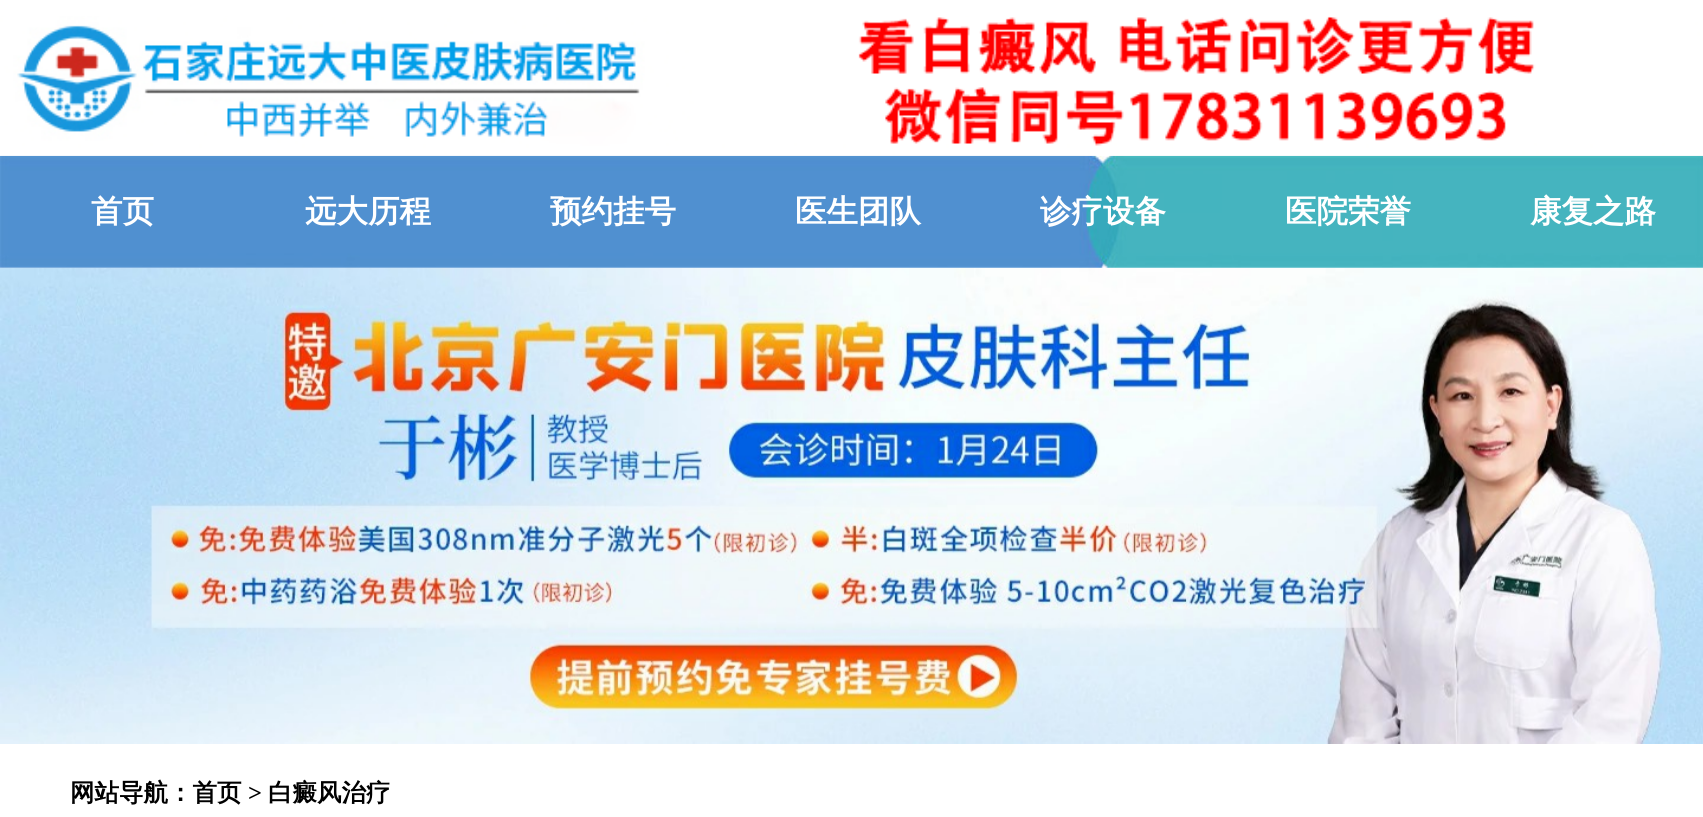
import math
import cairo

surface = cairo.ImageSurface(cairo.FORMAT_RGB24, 1703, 817)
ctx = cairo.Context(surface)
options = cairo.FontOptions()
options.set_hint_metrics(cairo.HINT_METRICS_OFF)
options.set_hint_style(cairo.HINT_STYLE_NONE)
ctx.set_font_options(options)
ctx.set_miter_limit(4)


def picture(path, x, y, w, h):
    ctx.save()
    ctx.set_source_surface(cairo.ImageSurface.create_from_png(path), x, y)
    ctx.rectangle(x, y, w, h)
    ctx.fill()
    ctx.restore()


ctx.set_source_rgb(1, 1, 1)
ctx.paint()
picture("img2.png", 0, 155, 1703, 113)
picture("img1.png", 0, 16, 1703, 140)
ctx.select_font_face("WenQuanYi Zen Hei", cairo.FONT_SLANT_NORMAL, cairo.FONT_WEIGHT_BOLD)
ctx.set_font_size(31.5)
ctx.set_source_rgb(1, 1, 1)
ctx.move_to(91, 222)
ctx.show_text("首页")
ctx.move_to(305, 222)
ctx.show_text("远大历程")
ctx.move_to(550, 222)
ctx.show_text("预约挂号")
ctx.move_to(795, 222)
ctx.show_text("医生团队")
ctx.move_to(1040, 222)
ctx.show_text("诊疗设备")
ctx.move_to(1285, 222)
ctx.show_text("医院荣誉")
ctx.move_to(1530, 222)
ctx.show_text("康复之路")
picture("img3.png", 0, 268, 1703, 476)
ctx.set_font_size(24.5)
ctx.set_source_rgb(0, 0, 0)
ctx.move_to(70, 801)
ctx.show_text("网站导航：首页")
ctx.select_font_face("Liberation Serif", cairo.FONT_SLANT_NORMAL, cairo.FONT_WEIGHT_BOLD)
ctx.move_to(248, 801)
ctx.show_text(">")
ctx.select_font_face("WenQuanYi Zen Hei", cairo.FONT_SLANT_NORMAL, cairo.FONT_WEIGHT_BOLD)
ctx.move_to(268, 801)
ctx.show_text("白癜风治疗")
surface.write_to_png("page.png")
